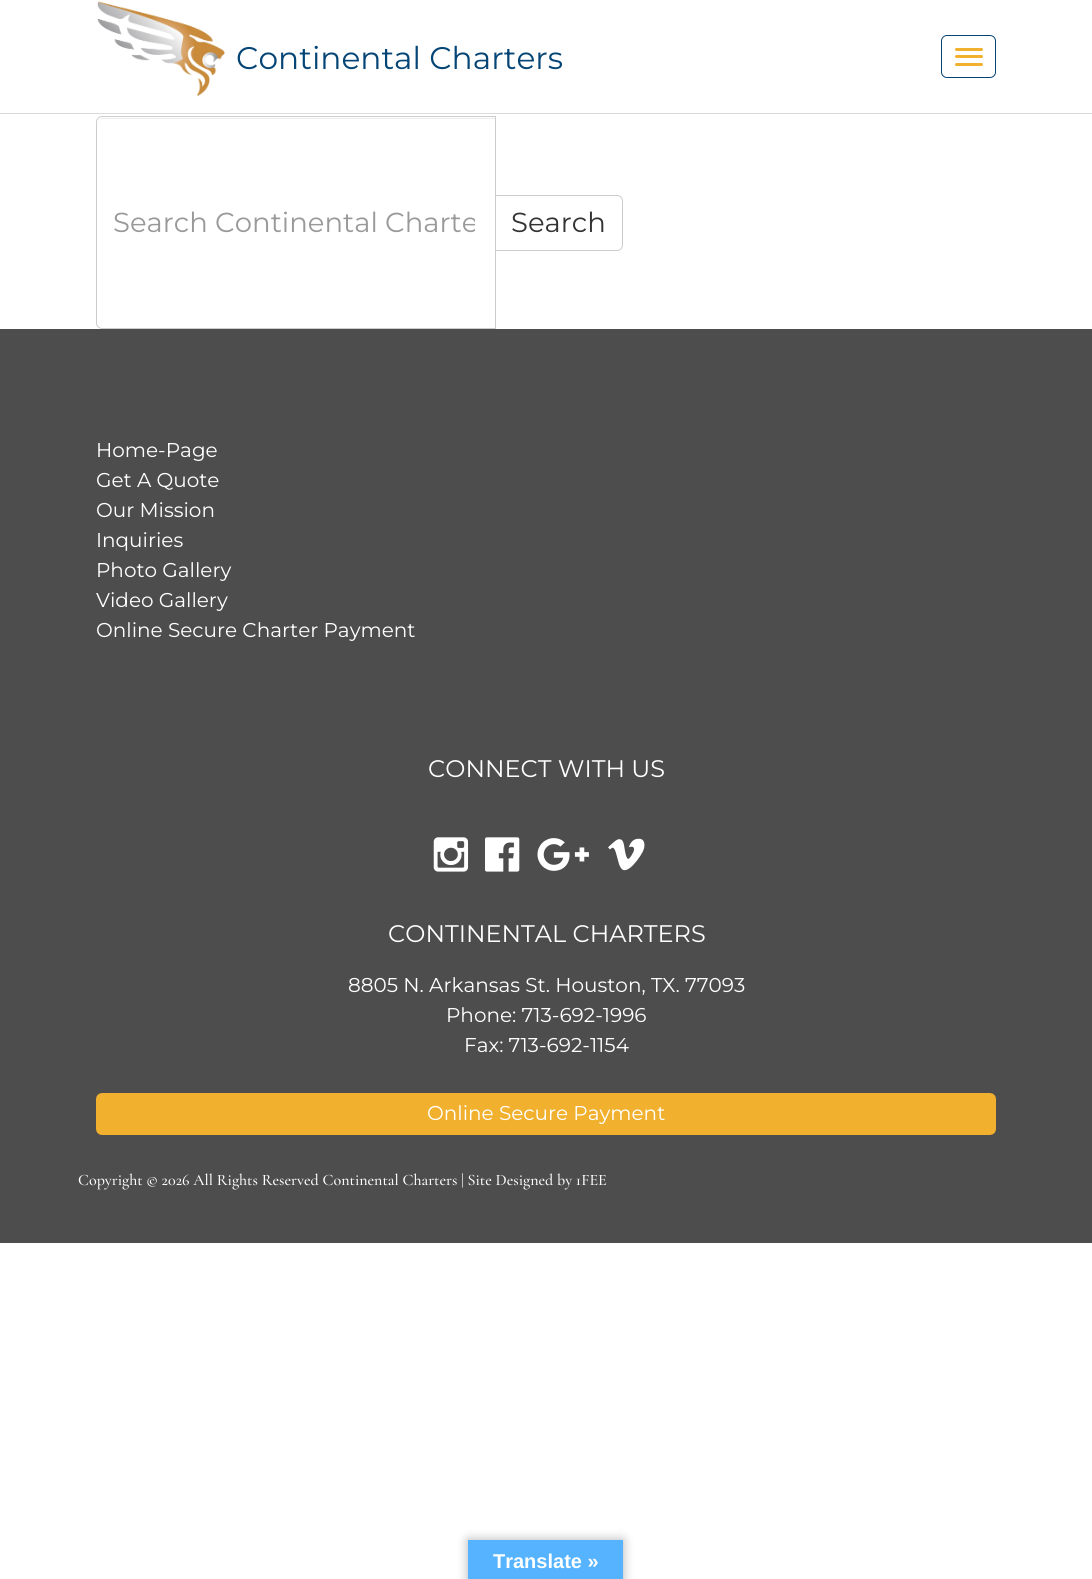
import math
import cairo

surface = cairo.ImageSurface(cairo.FORMAT_RGB24, 1092, 1579)
ctx = cairo.Context(surface)
options = cairo.FontOptions()
options.set_hint_metrics(cairo.HINT_METRICS_OFF)
options.set_hint_style(cairo.HINT_STYLE_NONE)
ctx.set_font_options(options)
ctx.set_miter_limit(4)


def round_rect(x, y, w, h, r):
    ctx.new_sub_path()
    for i, (u, v) in enumerate([(x + w - r, y + h - r), (x + r, y + h - r), (x + r, y + r), (x + w - r, y + r)]):
        ctx.arc(u, v, r, i * math.pi / 2, (i + 1) * math.pi / 2)
    ctx.close_path()


def shadow(x, y, w, h, r, blur, alpha):
    ctx.push_group_with_content(cairo.CONTENT_ALPHA)
    ctx.set_operator(cairo.OPERATOR_SOURCE)
    for i in range(15, -16, -2):
        e = blur * i / 6
        if min(w, h) + 2 * e > 0:
            ctx.set_source_rgba(0, 0, 0, alpha * math.erfc((i - 1) / 8.5) / 2)
            round_rect(x - e, y - e, w + 2 * e, h + 2 * e, max(0, min(r + e + blur * .6, min(w, h) / 2 + e)))
            ctx.fill()
    ctx.mask(ctx.pop_group())


def picture(path, x, y, w, h):
    ctx.save()
    ctx.set_source_surface(cairo.ImageSurface.create_from_png(path), x, y)
    ctx.rectangle(x, y, w, h)
    ctx.fill()
    ctx.restore()


ctx.set_source_rgb(1, 1, 1)
ctx.paint()
ctx.set_source_rgb(0.843, 0.859, 0.855)
ctx.rectangle(0, 113, 1092, 1)
ctx.fill()
round_rect(96.5, 0.5, 899, 78, 5.5)
ctx.set_source_rgb(1, 0.996, 0.988)
ctx.set_line_width(1)
ctx.stroke()
picture("img1.png", 97, 1, 128, 95)
ctx.select_font_face("Montserrat Thin")
ctx.set_font_size(31.25)
ctx.set_source_rgb(0.02, 0.271, 0.459)
ctx.move_to(236, 69)
ctx.show_text("Continental Charters")
round_rect(941.5, 35.5, 54, 42, 5.5)
ctx.stroke()
ctx.set_source_rgb(0.945, 0.69, 0.18)
round_rect(955, 48, 28, 3, 1.5)
ctx.fill()
round_rect(955, 55, 28, 3, 1.5)
ctx.fill()
round_rect(955, 63, 28, 3, 1.5)
ctx.fill()
ctx.new_path()
ctx.move_to(495.5, 195.5)
ctx.line_to(617, 195.5)
ctx.curve_to(620, 195.5, 622.5, 198, 622.5, 201)
ctx.line_to(622.5, 245)
ctx.curve_to(622.5, 248, 620, 250.5, 617, 250.5)
ctx.line_to(495.5, 250.5)
ctx.close_path()
ctx.set_source_rgb(0.8, 0.8, 0.8)
ctx.stroke()
ctx.set_source_rgb(1, 1, 1)
ctx.new_path()
ctx.move_to(102, 116)
ctx.line_to(496, 116)
ctx.line_to(496, 329)
ctx.line_to(102, 329)
ctx.curve_to(98.5, 329, 96, 326.5, 96, 323)
ctx.line_to(96, 122)
ctx.curve_to(96, 118.5, 98.5, 116, 102, 116)
ctx.close_path()
ctx.fill()
ctx.set_source_rgb(0.925, 0.925, 0.925)
ctx.new_path()
ctx.move_to(102, 119)
ctx.line_to(495, 119)
ctx.line_to(495, 118)
ctx.line_to(103, 118)
ctx.curve_to(100, 118, 98, 121, 98, 124)
ctx.curve_to(98, 121, 100, 119, 102, 119)
ctx.close_path()
ctx.fill()
ctx.new_path()
ctx.move_to(102, 116.5)
ctx.line_to(495.5, 116.5)
ctx.line_to(495.5, 328.5)
ctx.line_to(102, 328.5)
ctx.curve_to(99, 328.5, 96.5, 326, 96.5, 323)
ctx.line_to(96.5, 122)
ctx.curve_to(96.5, 119, 99, 116.5, 102, 116.5)
ctx.close_path()
ctx.set_source_rgb(0.8, 0.8, 0.8)
ctx.stroke()
ctx.save()
ctx.rectangle(113, 206, 362, 34)
ctx.clip()
ctx.set_font_size(27.5)
ctx.set_source_rgb(0.6, 0.6, 0.6)
ctx.move_to(113, 232)
ctx.show_text("Search Continental Charte")
ctx.restore()
ctx.set_font_size(27.5)
ctx.set_source_rgb(0.2, 0.2, 0.2)
ctx.move_to(511, 232)
ctx.show_text("Search")
ctx.set_source_rgb(0.302, 0.302, 0.302)
ctx.rectangle(0, 329, 1092, 914)
ctx.fill()
ctx.set_font_size(20)
ctx.set_source_rgb(1, 1, 1)
ctx.move_to(96, 457)
ctx.show_text("Home-Page")
ctx.move_to(96, 487)
ctx.show_text("Get A Quote")
ctx.move_to(96, 517)
ctx.show_text("Our Mission")
ctx.move_to(96, 547)
ctx.show_text("Inquiries")
ctx.move_to(96, 577)
ctx.show_text("Photo Gallery")
ctx.move_to(96, 607)
ctx.show_text("Video Gallery")
ctx.move_to(96, 637)
ctx.show_text("Online Secure Charter Payment")
ctx.set_font_size(24)
ctx.move_to(428, 777)
ctx.show_text("CONNECT WITH US")
picture("img2.png", 433, 837, 36, 35)
picture("img3.png", 485, 837, 35, 35)
picture("img4.png", 537, 838, 52, 33)
picture("img5.png", 608, 838, 37, 33)
ctx.move_to(388, 942)
ctx.show_text("CONTINENTAL CHARTERS")
ctx.set_font_size(20)
ctx.move_to(348, 992)
ctx.show_text("8805 N. Arkansas St. Houston, TX. 77093")
ctx.move_to(446, 1022)
ctx.show_text("Phone: 713-692-1996")
ctx.move_to(464, 1052)
ctx.show_text("Fax: 713-692-1154")
ctx.set_source_rgb(0.945, 0.69, 0.18)
round_rect(98.5, 1095.5, 895, 37, 3.5)
ctx.fill_preserve()
ctx.set_line_width(5)
ctx.stroke()
ctx.set_source_rgb(1, 1, 1)
ctx.move_to(427, 1120)
ctx.show_text("Online Secure Payment")
ctx.select_font_face("Cormorant Garamond Medium")
ctx.set_font_size(16)
ctx.move_to(78, 1185)
ctx.show_text("Copyright © 2026 All Rights Reserved Continental Charters | Site Designed by 1FEE")
ctx.set_source_rgb(0, 0, 0)
shadow(468, 1540, 155, 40, 0, 5.5, 0.3)
ctx.set_source_rgb(0.337, 0.702, 1)
ctx.rectangle(468, 1540, 155, 39)
ctx.fill()
ctx.select_font_face("Liberation Sans", cairo.FONT_SLANT_NORMAL, cairo.FONT_WEIGHT_BOLD)
ctx.set_font_size(20)
ctx.set_source_rgb(1, 1, 1)
ctx.move_to(493, 1568)
ctx.show_text("Translate »")
surface.write_to_png("page.png")
